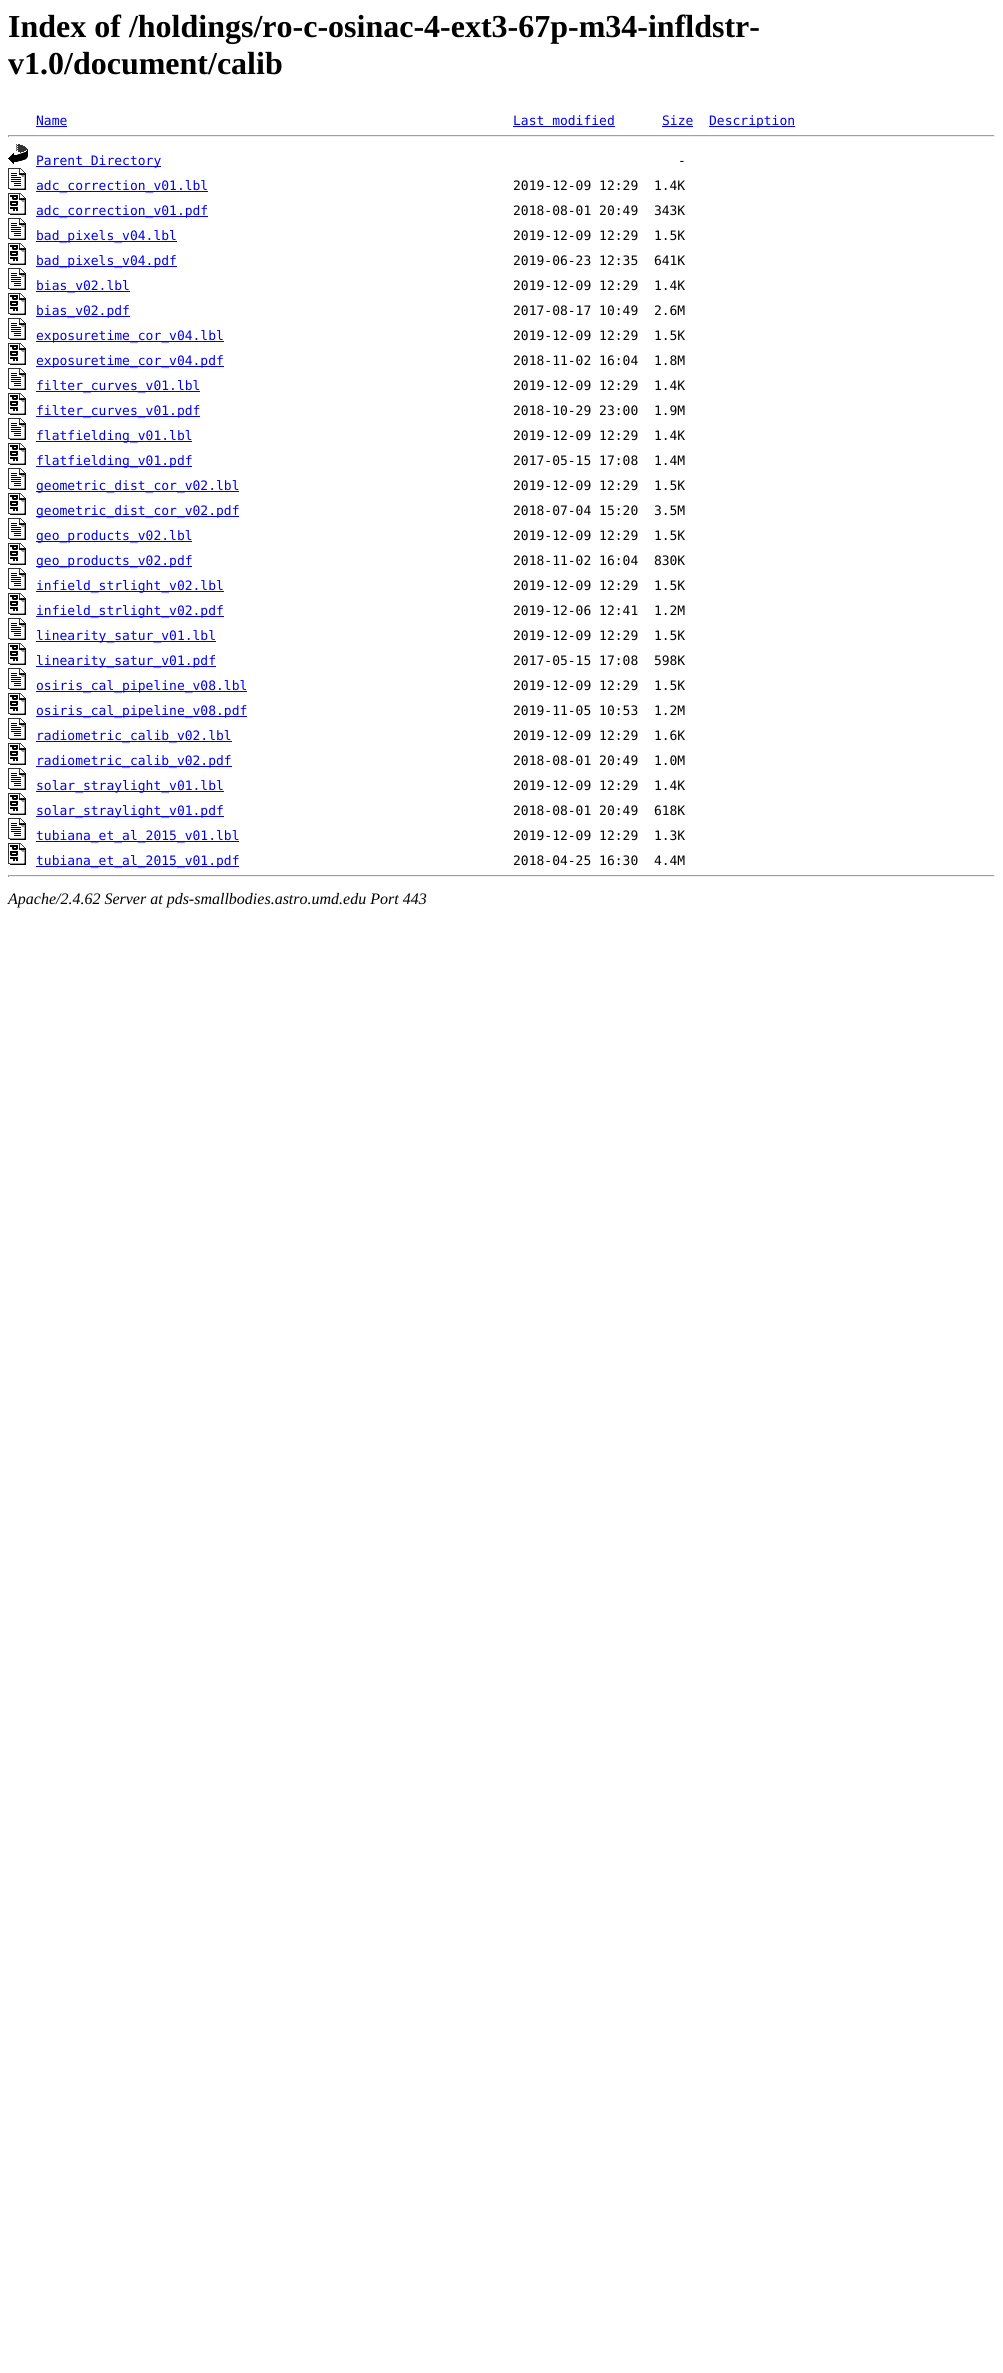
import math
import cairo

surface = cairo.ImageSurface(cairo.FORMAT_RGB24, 1003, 2373)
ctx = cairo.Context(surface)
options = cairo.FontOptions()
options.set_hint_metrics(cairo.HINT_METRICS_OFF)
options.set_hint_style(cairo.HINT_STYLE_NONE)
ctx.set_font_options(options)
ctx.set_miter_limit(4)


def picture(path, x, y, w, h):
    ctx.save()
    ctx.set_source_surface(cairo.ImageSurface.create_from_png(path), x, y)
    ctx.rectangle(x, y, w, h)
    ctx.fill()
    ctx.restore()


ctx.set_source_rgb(1, 1, 1)
ctx.paint()
ctx.select_font_face("Liberation Serif", cairo.FONT_SLANT_NORMAL, cairo.FONT_WEIGHT_BOLD)
ctx.set_font_size(32)
ctx.set_source_rgb(0, 0, 0)
ctx.move_to(8, 37)
ctx.show_text("Index of /holdings/ro-c-osinac-4-ext3-67p-m34-infldstr-")
ctx.move_to(8, 74)
ctx.show_text("v1.0/document/calib")
ctx.select_font_face("DejaVu Sans Mono")
ctx.set_font_size(13)
ctx.set_source_rgb(0, 0, 0.933)
ctx.move_to(36, 125)
ctx.show_text("Name")
ctx.rectangle(36, 126, 31, 1)
ctx.fill()
ctx.move_to(513, 125)
ctx.show_text("Last modified")
ctx.rectangle(513, 126, 102, 1)
ctx.fill()
ctx.move_to(662, 125)
ctx.show_text("Size")
ctx.rectangle(662, 126, 31, 1)
ctx.fill()
ctx.rectangle(709, 126, 86, 1)
ctx.fill()
ctx.move_to(709, 125)
ctx.show_text("Description")
ctx.set_source_rgb(0.624, 0.624, 0.624)
ctx.rectangle(8, 135, 987, 1)
ctx.fill()
ctx.set_source_rgb(0.933, 0.933, 0.933)
ctx.rectangle(994, 135, 1, 2)
ctx.fill()
ctx.rectangle(8, 136, 987, 1)
ctx.fill()
ctx.set_source_rgb(0.624, 0.624, 0.624)
ctx.rectangle(8, 135, 1, 2)
ctx.fill()
picture("img1.png", 8, 144, 20, 20)
ctx.set_source_rgb(0, 0, 0.933)
ctx.rectangle(36, 166, 125, 1)
ctx.fill()
ctx.move_to(36, 165)
ctx.show_text("Parent Directory")
ctx.set_source_rgb(0, 0, 0)
ctx.move_to(678, 165)
ctx.show_text("-")
picture("img2.png", 8, 168, 18, 22)
ctx.set_source_rgb(0, 0, 0.933)
ctx.rectangle(36, 191, 172, 1)
ctx.fill()
ctx.move_to(36, 190)
ctx.show_text("adc_correction_v01.lbl")
ctx.set_source_rgb(0, 0, 0)
ctx.move_to(513, 190)
ctx.show_text("2019-12-09 12:29  1.4K")
picture("img3.png", 8, 193, 18, 22)
ctx.set_source_rgb(0, 0, 0.933)
ctx.rectangle(36, 216, 172, 1)
ctx.fill()
ctx.move_to(36, 215)
ctx.show_text("adc_correction_v01.pdf")
ctx.set_source_rgb(0, 0, 0)
ctx.move_to(513, 215)
ctx.show_text("2018-08-01 20:49  343K")
picture("img2.png", 8, 218, 18, 22)
ctx.set_source_rgb(0, 0, 0.933)
ctx.rectangle(36, 241, 141, 1)
ctx.fill()
ctx.move_to(36, 240)
ctx.show_text("bad_pixels_v04.lbl")
ctx.set_source_rgb(0, 0, 0)
ctx.move_to(513, 240)
ctx.show_text("2019-12-09 12:29  1.5K")
picture("img3.png", 8, 243, 18, 22)
ctx.set_source_rgb(0, 0, 0.933)
ctx.rectangle(36, 266, 141, 1)
ctx.fill()
ctx.move_to(36, 265)
ctx.show_text("bad_pixels_v04.pdf")
ctx.set_source_rgb(0, 0, 0)
ctx.move_to(513, 265)
ctx.show_text("2019-06-23 12:35  641K")
picture("img2.png", 8, 268, 18, 22)
ctx.set_source_rgb(0, 0, 0.933)
ctx.rectangle(36, 291, 94, 1)
ctx.fill()
ctx.move_to(36, 290)
ctx.show_text("bias_v02.lbl")
ctx.set_source_rgb(0, 0, 0)
ctx.move_to(513, 290)
ctx.show_text("2019-12-09 12:29  1.4K")
picture("img3.png", 8, 293, 18, 22)
ctx.set_source_rgb(0, 0, 0.933)
ctx.rectangle(36, 316, 94, 1)
ctx.fill()
ctx.move_to(36, 315)
ctx.show_text("bias_v02.pdf")
ctx.set_source_rgb(0, 0, 0)
ctx.move_to(513, 315)
ctx.show_text("2017-08-17 10:49  2.6M")
picture("img2.png", 8, 318, 18, 22)
ctx.set_source_rgb(0, 0, 0.933)
ctx.rectangle(36, 341, 188, 1)
ctx.fill()
ctx.move_to(36, 340)
ctx.show_text("exposuretime_cor_v04.lbl")
ctx.set_source_rgb(0, 0, 0)
ctx.move_to(513, 340)
ctx.show_text("2019-12-09 12:29  1.5K")
picture("img3.png", 8, 343, 18, 22)
ctx.set_source_rgb(0, 0, 0.933)
ctx.rectangle(36, 366, 188, 1)
ctx.fill()
ctx.move_to(36, 365)
ctx.show_text("exposuretime_cor_v04.pdf")
ctx.set_source_rgb(0, 0, 0)
ctx.move_to(513, 365)
ctx.show_text("2018-11-02 16:04  1.8M")
picture("img2.png", 8, 368, 18, 22)
ctx.set_source_rgb(0, 0, 0.933)
ctx.rectangle(36, 391, 164, 1)
ctx.fill()
ctx.move_to(36, 390)
ctx.show_text("filter_curves_v01.lbl")
ctx.set_source_rgb(0, 0, 0)
ctx.move_to(513, 390)
ctx.show_text("2019-12-09 12:29  1.4K")
picture("img3.png", 8, 393, 18, 22)
ctx.set_source_rgb(0, 0, 0.933)
ctx.rectangle(36, 416, 164, 1)
ctx.fill()
ctx.move_to(36, 415)
ctx.show_text("filter_curves_v01.pdf")
ctx.set_source_rgb(0, 0, 0)
ctx.move_to(513, 415)
ctx.show_text("2018-10-29 23:00  1.9M")
picture("img2.png", 8, 418, 18, 22)
ctx.set_source_rgb(0, 0, 0.933)
ctx.rectangle(36, 441, 156, 1)
ctx.fill()
ctx.move_to(36, 440)
ctx.show_text("flatfielding_v01.lbl")
ctx.set_source_rgb(0, 0, 0)
ctx.move_to(513, 440)
ctx.show_text("2019-12-09 12:29  1.4K")
picture("img3.png", 8, 443, 18, 22)
ctx.set_source_rgb(0, 0, 0.933)
ctx.rectangle(36, 466, 156, 1)
ctx.fill()
ctx.move_to(36, 465)
ctx.show_text("flatfielding_v01.pdf")
ctx.set_source_rgb(0, 0, 0)
ctx.move_to(513, 465)
ctx.show_text("2017-05-15 17:08  1.4M")
picture("img2.png", 8, 468, 18, 22)
ctx.set_source_rgb(0, 0, 0.933)
ctx.rectangle(36, 491, 203, 1)
ctx.fill()
ctx.move_to(36, 490)
ctx.show_text("geometric_dist_cor_v02.lbl")
ctx.set_source_rgb(0, 0, 0)
ctx.move_to(513, 490)
ctx.show_text("2019-12-09 12:29  1.5K")
picture("img3.png", 8, 493, 18, 22)
ctx.set_source_rgb(0, 0, 0.933)
ctx.rectangle(36, 516, 203, 1)
ctx.fill()
ctx.move_to(36, 515)
ctx.show_text("geometric_dist_cor_v02.pdf")
ctx.set_source_rgb(0, 0, 0)
ctx.move_to(513, 515)
ctx.show_text("2018-07-04 15:20  3.5M")
picture("img2.png", 8, 518, 18, 22)
ctx.set_source_rgb(0, 0, 0.933)
ctx.rectangle(36, 541, 156, 1)
ctx.fill()
ctx.move_to(36, 540)
ctx.show_text("geo_products_v02.lbl")
ctx.set_source_rgb(0, 0, 0)
ctx.move_to(513, 540)
ctx.show_text("2019-12-09 12:29  1.5K")
picture("img3.png", 8, 543, 18, 22)
ctx.set_source_rgb(0, 0, 0.933)
ctx.rectangle(36, 566, 156, 1)
ctx.fill()
ctx.move_to(36, 565)
ctx.show_text("geo_products_v02.pdf")
ctx.set_source_rgb(0, 0, 0)
ctx.move_to(513, 565)
ctx.show_text("2018-11-02 16:04  830K")
picture("img2.png", 8, 568, 18, 22)
ctx.set_source_rgb(0, 0, 0.933)
ctx.rectangle(36, 591, 188, 1)
ctx.fill()
ctx.move_to(36, 590)
ctx.show_text("infield_strlight_v02.lbl")
ctx.set_source_rgb(0, 0, 0)
ctx.move_to(513, 590)
ctx.show_text("2019-12-09 12:29  1.5K")
picture("img3.png", 8, 593, 18, 22)
ctx.set_source_rgb(0, 0, 0.933)
ctx.rectangle(36, 616, 188, 1)
ctx.fill()
ctx.move_to(36, 615)
ctx.show_text("infield_strlight_v02.pdf")
ctx.set_source_rgb(0, 0, 0)
ctx.move_to(513, 615)
ctx.show_text("2019-12-06 12:41  1.2M")
picture("img2.png", 8, 618, 18, 22)
ctx.set_source_rgb(0, 0, 0.933)
ctx.rectangle(36, 641, 180, 1)
ctx.fill()
ctx.move_to(36, 640)
ctx.show_text("linearity_satur_v01.lbl")
ctx.set_source_rgb(0, 0, 0)
ctx.move_to(513, 640)
ctx.show_text("2019-12-09 12:29  1.5K")
picture("img3.png", 8, 643, 18, 22)
ctx.set_source_rgb(0, 0, 0.933)
ctx.rectangle(36, 666, 180, 1)
ctx.fill()
ctx.move_to(36, 665)
ctx.show_text("linearity_satur_v01.pdf")
ctx.set_source_rgb(0, 0, 0)
ctx.move_to(513, 665)
ctx.show_text("2017-05-15 17:08  598K")
picture("img2.png", 8, 668, 18, 22)
ctx.set_source_rgb(0, 0, 0.933)
ctx.rectangle(36, 691, 211, 1)
ctx.fill()
ctx.move_to(36, 690)
ctx.show_text("osiris_cal_pipeline_v08.lbl")
ctx.set_source_rgb(0, 0, 0)
ctx.move_to(513, 690)
ctx.show_text("2019-12-09 12:29  1.5K")
picture("img3.png", 8, 693, 18, 22)
ctx.set_source_rgb(0, 0, 0.933)
ctx.rectangle(36, 716, 211, 1)
ctx.fill()
ctx.move_to(36, 715)
ctx.show_text("osiris_cal_pipeline_v08.pdf")
ctx.set_source_rgb(0, 0, 0)
ctx.move_to(513, 715)
ctx.show_text("2019-11-05 10:53  1.2M")
picture("img2.png", 8, 718, 18, 22)
ctx.set_source_rgb(0, 0, 0.933)
ctx.rectangle(36, 741, 196, 1)
ctx.fill()
ctx.move_to(36, 740)
ctx.show_text("radiometric_calib_v02.lbl")
ctx.set_source_rgb(0, 0, 0)
ctx.move_to(513, 740)
ctx.show_text("2019-12-09 12:29  1.6K")
picture("img3.png", 8, 743, 18, 22)
ctx.set_source_rgb(0, 0, 0.933)
ctx.rectangle(36, 766, 196, 1)
ctx.fill()
ctx.move_to(36, 765)
ctx.show_text("radiometric_calib_v02.pdf")
ctx.set_source_rgb(0, 0, 0)
ctx.move_to(513, 765)
ctx.show_text("2018-08-01 20:49  1.0M")
picture("img2.png", 8, 768, 18, 22)
ctx.set_source_rgb(0, 0, 0.933)
ctx.rectangle(36, 791, 188, 1)
ctx.fill()
ctx.move_to(36, 790)
ctx.show_text("solar_straylight_v01.lbl")
ctx.set_source_rgb(0, 0, 0)
ctx.move_to(513, 790)
ctx.show_text("2019-12-09 12:29  1.4K")
picture("img3.png", 8, 793, 18, 22)
ctx.set_source_rgb(0, 0, 0.933)
ctx.rectangle(36, 816, 188, 1)
ctx.fill()
ctx.move_to(36, 815)
ctx.show_text("solar_straylight_v01.pdf")
ctx.set_source_rgb(0, 0, 0)
ctx.move_to(513, 815)
ctx.show_text("2018-08-01 20:49  618K")
picture("img2.png", 8, 818, 18, 22)
ctx.set_source_rgb(0, 0, 0.933)
ctx.rectangle(36, 841, 203, 1)
ctx.fill()
ctx.move_to(36, 840)
ctx.show_text("tubiana_et_al_2015_v01.lbl")
ctx.set_source_rgb(0, 0, 0)
ctx.move_to(513, 840)
ctx.show_text("2019-12-09 12:29  1.3K")
picture("img3.png", 8, 843, 18, 22)
ctx.set_source_rgb(0, 0, 0.933)
ctx.rectangle(36, 866, 203, 1)
ctx.fill()
ctx.move_to(36, 865)
ctx.show_text("tubiana_et_al_2015_v01.pdf")
ctx.set_source_rgb(0, 0, 0)
ctx.move_to(513, 865)
ctx.show_text("2018-04-25 16:30  4.4M")
ctx.set_source_rgb(0.624, 0.624, 0.624)
ctx.rectangle(8, 875, 987, 1)
ctx.fill()
ctx.set_source_rgb(0.933, 0.933, 0.933)
ctx.rectangle(994, 875, 1, 2)
ctx.fill()
ctx.rectangle(8, 876, 987, 1)
ctx.fill()
ctx.set_source_rgb(0.624, 0.624, 0.624)
ctx.rectangle(8, 875, 1, 2)
ctx.fill()
ctx.select_font_face("Liberation Serif", cairo.FONT_SLANT_ITALIC)
ctx.set_font_size(16)
ctx.set_source_rgb(0, 0, 0)
ctx.move_to(8, 904)
ctx.show_text("Apache/2.4.62 Server at pds-smallbodies.astro.umd.edu Port 443")
surface.write_to_png("page.png")
